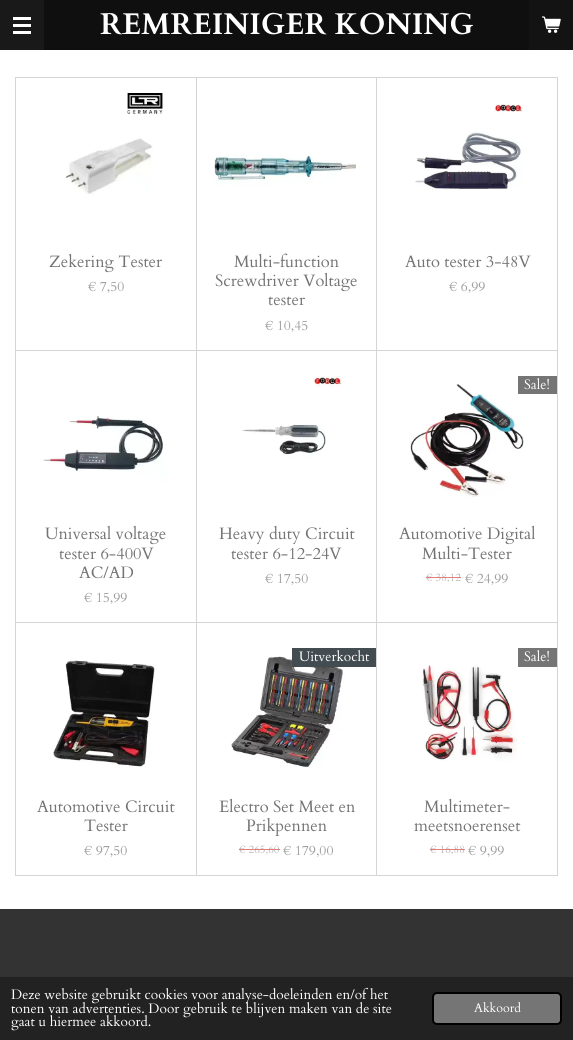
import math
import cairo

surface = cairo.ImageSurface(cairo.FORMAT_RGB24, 573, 1040)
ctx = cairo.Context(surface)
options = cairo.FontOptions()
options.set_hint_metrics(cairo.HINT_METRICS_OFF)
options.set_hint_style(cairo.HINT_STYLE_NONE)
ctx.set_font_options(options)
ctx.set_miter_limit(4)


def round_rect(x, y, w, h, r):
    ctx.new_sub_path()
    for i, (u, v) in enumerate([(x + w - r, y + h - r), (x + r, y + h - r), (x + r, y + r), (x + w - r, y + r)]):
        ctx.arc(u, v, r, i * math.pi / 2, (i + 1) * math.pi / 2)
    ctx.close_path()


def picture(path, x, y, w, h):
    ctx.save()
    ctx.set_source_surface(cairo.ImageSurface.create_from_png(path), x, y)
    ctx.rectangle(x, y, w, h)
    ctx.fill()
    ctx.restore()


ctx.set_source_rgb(0.059, 0.059, 0.059)
ctx.paint()
ctx.set_source_rgb(0.098, 0.098, 0.098)
ctx.rectangle(0, 0, 44, 50)
ctx.fill()
ctx.set_source_rgb(1, 1, 1)
ctx.rectangle(13, 24, 18, 3)
ctx.fill()
ctx.rectangle(13, 17, 18, 3)
ctx.fill()
ctx.rectangle(13, 31, 18, 3)
ctx.fill()
ctx.select_font_face("Cardo", cairo.FONT_SLANT_NORMAL, cairo.FONT_WEIGHT_BOLD)
ctx.set_font_size(30)
ctx.move_to(100, 34)
ctx.show_text("REMREINIGER KONING")
ctx.set_source_rgb(0.078, 0.078, 0.078)
ctx.rectangle(529, 0, 44, 50)
ctx.fill()
picture("img1.png", 542, 16, 19, 17)
ctx.set_source_rgb(1, 1, 1)
ctx.rectangle(0, 50, 573, 859)
ctx.fill()
ctx.rectangle(15.5, 77.5, 181, 273)
ctx.set_source_rgb(0.835, 0.835, 0.835)
ctx.set_line_width(1)
ctx.stroke()
picture("img2.png", 65, 93, 99, 102)
ctx.select_font_face("Cardo")
ctx.set_font_size(16.5)
ctx.set_source_rgb(0.451, 0.451, 0.451)
ctx.move_to(49, 267)
ctx.show_text("Zekering Tester")
ctx.set_font_size(13.7)
ctx.set_source_rgb(0.616, 0.616, 0.616)
ctx.move_to(88, 291)
ctx.show_text("€ 7,50")
ctx.rectangle(196.5, 77.5, 180, 273)
ctx.set_source_rgb(0.835, 0.835, 0.835)
ctx.stroke()
picture("img3.png", 214, 155, 146, 31)
ctx.set_font_size(16.5)
ctx.set_source_rgb(0.451, 0.451, 0.451)
ctx.move_to(234, 267)
ctx.show_text("Multi-function")
ctx.move_to(215, 286)
ctx.show_text("Screwdriver Voltage")
ctx.move_to(268, 305)
ctx.show_text("tester")
ctx.set_font_size(13.7)
ctx.set_source_rgb(0.616, 0.616, 0.616)
ctx.move_to(265, 330)
ctx.show_text("€ 10,45")
ctx.rectangle(376.5, 77.5, 181, 273)
ctx.set_source_rgb(0.835, 0.835, 0.835)
ctx.stroke()
picture("img4.png", 415, 103, 108, 87)
ctx.set_font_size(16.5)
ctx.set_source_rgb(0.451, 0.451, 0.451)
ctx.move_to(405, 267)
ctx.show_text("Auto tester 3-48V")
ctx.set_font_size(13.7)
ctx.set_source_rgb(0.616, 0.616, 0.616)
ctx.move_to(449, 291)
ctx.show_text("€ 6,99")
ctx.rectangle(15.5, 350.5, 181, 272)
ctx.set_source_rgb(0.835, 0.835, 0.835)
ctx.stroke()
picture("img5.png", 43, 415, 126, 69)
ctx.set_font_size(16.5)
ctx.set_source_rgb(0.451, 0.451, 0.451)
ctx.move_to(45, 539)
ctx.show_text("Universal voltage")
ctx.move_to(59, 559)
ctx.show_text("tester 6-400V")
ctx.move_to(79, 578)
ctx.show_text("AC/AD")
ctx.set_font_size(13.7)
ctx.set_source_rgb(0.616, 0.616, 0.616)
ctx.move_to(84, 602)
ctx.show_text("€ 15,99")
ctx.rectangle(196.5, 350.5, 180, 272)
ctx.set_source_rgb(0.835, 0.835, 0.835)
ctx.stroke()
picture("img6.png", 242, 376, 100, 82)
ctx.set_font_size(16.5)
ctx.set_source_rgb(0.451, 0.451, 0.451)
ctx.move_to(219, 539)
ctx.show_text("Heavy duty Circuit")
ctx.move_to(231, 559)
ctx.show_text("tester 6-12-24V")
ctx.set_font_size(13.7)
ctx.set_source_rgb(0.616, 0.616, 0.616)
ctx.move_to(265, 583)
ctx.show_text("€ 17,50")
ctx.rectangle(376.5, 350.5, 181, 272)
ctx.set_source_rgb(0.835, 0.835, 0.835)
ctx.stroke()
picture("img7.png", 410, 384, 114, 113)
ctx.set_source_rgb(0.459, 0.459, 0.459)
ctx.rectangle(518, 376, 39, 18)
ctx.fill()
ctx.set_source_rgb(1, 1, 1)
ctx.move_to(524, 389)
ctx.show_text("Sale!")
ctx.set_font_size(16.5)
ctx.set_source_rgb(0.451, 0.451, 0.451)
ctx.move_to(399, 539)
ctx.show_text("Automotive Digital")
ctx.move_to(422, 559)
ctx.show_text("Multi-Tester")
ctx.set_font_size(11)
ctx.set_source_rgb(0.714, 0.714, 0.714)
ctx.move_to(426, 581)
ctx.show_text("€ 38,12")
ctx.set_source_rgb(0.89, 0.494, 0.482)
ctx.rectangle(426, 577, 35, 1)
ctx.fill()
ctx.set_font_size(13.7)
ctx.set_source_rgb(0.616, 0.616, 0.616)
ctx.move_to(465, 583)
ctx.show_text("€ 24,99")
ctx.rectangle(15.5, 622.5, 181, 253)
ctx.set_source_rgb(0.835, 0.835, 0.835)
ctx.stroke()
picture("img8.png", 53, 660, 102, 108)
ctx.set_font_size(16.5)
ctx.set_source_rgb(0.451, 0.451, 0.451)
ctx.move_to(37, 812)
ctx.show_text("Automotive Circuit")
ctx.move_to(84, 831)
ctx.show_text("Tester")
ctx.set_font_size(13.7)
ctx.set_source_rgb(0.616, 0.616, 0.616)
ctx.move_to(84, 855)
ctx.show_text("€ 97,50")
ctx.rectangle(196.5, 622.5, 180, 253)
ctx.set_source_rgb(0.835, 0.835, 0.835)
ctx.stroke()
picture("img9.png", 231, 656, 116, 112)
ctx.set_source_rgb(0.259, 0.298, 0.318)
ctx.rectangle(292, 648, 84, 19)
ctx.fill()
ctx.set_source_rgb(1, 1, 1)
ctx.move_to(299, 661)
ctx.show_text("Uitverkocht")
ctx.set_font_size(16.5)
ctx.set_source_rgb(0.451, 0.451, 0.451)
ctx.move_to(219, 812)
ctx.show_text("Electro Set Meet en")
ctx.move_to(246, 831)
ctx.show_text("Prikpennen")
ctx.set_font_size(11)
ctx.set_source_rgb(0.714, 0.714, 0.714)
ctx.move_to(239, 853)
ctx.show_text("€ 265,60")
ctx.set_source_rgb(0.89, 0.494, 0.482)
ctx.rectangle(239, 849, 41, 1)
ctx.fill()
ctx.set_font_size(13.7)
ctx.set_source_rgb(0.616, 0.616, 0.616)
ctx.move_to(283, 855)
ctx.show_text("€ 179,00")
ctx.rectangle(376.5, 622.5, 181, 253)
ctx.set_source_rgb(0.835, 0.835, 0.835)
ctx.stroke()
ctx.set_source_rgb(0.459, 0.459, 0.459)
ctx.rectangle(518, 648, 39, 19)
ctx.fill()
ctx.set_source_rgb(1, 1, 1)
ctx.move_to(524, 661)
ctx.show_text("Sale!")
picture("img10.png", 422, 664, 95, 97)
ctx.set_font_size(16.5)
ctx.set_source_rgb(0.451, 0.451, 0.451)
ctx.move_to(424, 812)
ctx.show_text("Multimeter-")
ctx.move_to(414, 831)
ctx.show_text("meetsnoerenset")
ctx.set_font_size(11)
ctx.set_source_rgb(0.714, 0.714, 0.714)
ctx.move_to(430, 853)
ctx.show_text("€ 16,88")
ctx.set_source_rgb(0.89, 0.494, 0.482)
ctx.rectangle(430, 849, 35, 1)
ctx.fill()
ctx.set_font_size(13.7)
ctx.set_source_rgb(0.616, 0.616, 0.616)
ctx.move_to(468, 855)
ctx.show_text("€ 9,99")
ctx.set_source_rgb(0.2, 0.2, 0.2)
ctx.rectangle(0, 909, 573, 68)
ctx.fill()
ctx.set_source_rgb(0.133, 0.133, 0.133)
ctx.rectangle(0, 977, 573, 63)
ctx.fill()
ctx.set_source_rgb(1, 1, 1)
ctx.move_to(11, 999)
ctx.show_text("Deze website gebruikt cookies voor analyse-doeleinden en/of het")
ctx.move_to(11, 1013)
ctx.show_text("tonen van advertenties. Door gebruik te blijven maken van de site")
ctx.move_to(11, 1026)
ctx.show_text("gaat u hiermee akkoord.")
ctx.set_source_rgb(0.459, 0.459, 0.459)
round_rect(433, 993, 128, 31, 4)
ctx.fill_preserve()
ctx.set_source_rgb(0, 0, 0)
ctx.set_line_width(2)
ctx.stroke()
ctx.set_font_size(12.5)
ctx.set_source_rgb(1, 1, 1)
ctx.move_to(474, 1012)
ctx.show_text("Akkoord")
surface.write_to_png("page.png")
